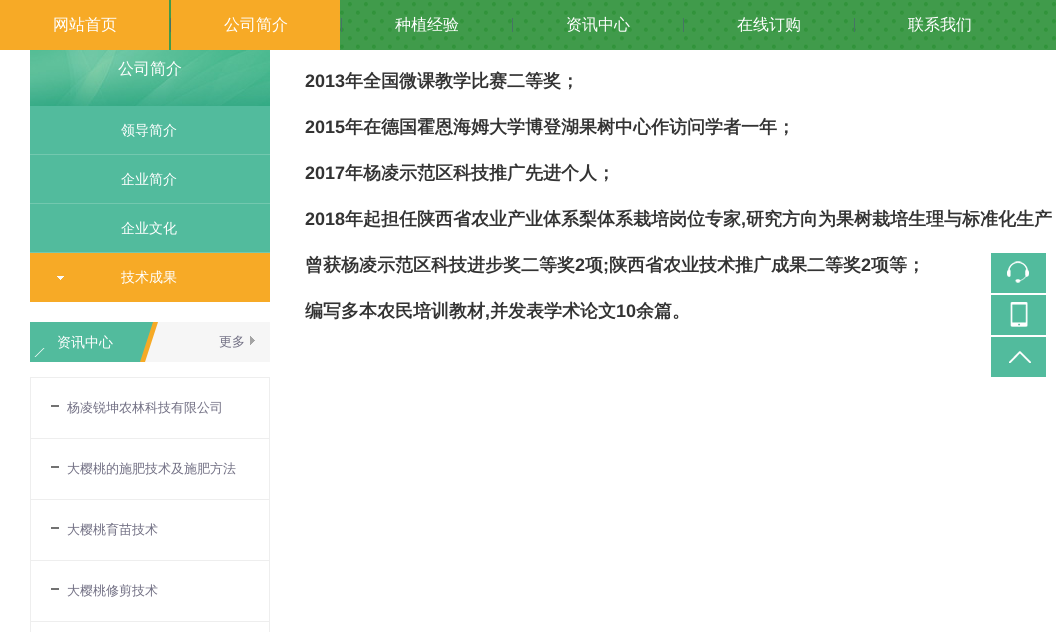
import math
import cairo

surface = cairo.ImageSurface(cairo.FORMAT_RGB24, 1056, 632)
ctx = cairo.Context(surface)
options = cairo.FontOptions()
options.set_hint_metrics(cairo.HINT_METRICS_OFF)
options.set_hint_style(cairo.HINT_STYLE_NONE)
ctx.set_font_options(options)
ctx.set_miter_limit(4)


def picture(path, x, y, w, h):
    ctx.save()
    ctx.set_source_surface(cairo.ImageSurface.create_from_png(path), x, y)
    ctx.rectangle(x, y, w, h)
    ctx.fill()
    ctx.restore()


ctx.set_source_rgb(1, 1, 1)
ctx.paint()
picture("img1.png", 169, 0, 887, 50)
ctx.set_source_rgb(0.965, 0.667, 0.149)
ctx.rectangle(0, 0, 169, 50)
ctx.fill()
ctx.select_font_face("WenQuanYi Zen Hei Medium")
ctx.set_font_size(16)
ctx.set_source_rgb(1, 1, 1)
ctx.move_to(53, 30)
ctx.show_text("网站首页")
ctx.set_source_rgb(0.275, 0.455, 0.396)
ctx.rectangle(170, 18, 1, 14)
ctx.fill()
ctx.set_source_rgb(0.965, 0.667, 0.149)
ctx.rectangle(171, 0, 169, 50)
ctx.fill()
ctx.set_source_rgb(1, 1, 1)
ctx.move_to(224, 30)
ctx.show_text("公司简介")
ctx.set_source_rgb(0.275, 0.455, 0.396)
ctx.rectangle(341, 18, 1, 14)
ctx.fill()
ctx.set_source_rgb(1, 1, 1)
ctx.move_to(395, 30)
ctx.show_text("种植经验")
ctx.set_source_rgb(0.275, 0.455, 0.396)
ctx.rectangle(512, 18, 1, 14)
ctx.fill()
ctx.set_source_rgb(1, 1, 1)
ctx.move_to(566, 30)
ctx.show_text("资讯中心")
ctx.set_source_rgb(0.275, 0.455, 0.396)
ctx.rectangle(683, 18, 1, 14)
ctx.fill()
ctx.set_source_rgb(1, 1, 1)
ctx.move_to(737, 30)
ctx.show_text("在线订购")
ctx.set_source_rgb(0.275, 0.455, 0.396)
ctx.rectangle(854, 18, 1, 14)
ctx.fill()
ctx.set_source_rgb(1, 1, 1)
ctx.move_to(908, 30)
ctx.show_text("联系我们")
picture("img2.png", 30, 50, 240, 56)
ctx.move_to(118, 74)
ctx.show_text("公司简介")
ctx.set_source_rgb(0.322, 0.733, 0.616)
ctx.rectangle(30, 106, 240, 48)
ctx.fill()
ctx.set_source_rgb(0.451, 0.784, 0.686)
ctx.rectangle(30, 154, 240, 1)
ctx.fill()
ctx.set_font_size(14)
ctx.set_source_rgb(1, 1, 1)
ctx.move_to(121, 135)
ctx.show_text("领导简介")
ctx.set_source_rgb(0.322, 0.733, 0.616)
ctx.rectangle(30, 155, 240, 48)
ctx.fill()
ctx.set_source_rgb(0.451, 0.784, 0.686)
ctx.rectangle(30, 203, 240, 1)
ctx.fill()
ctx.set_source_rgb(1, 1, 1)
ctx.move_to(121, 184)
ctx.show_text("企业简介")
ctx.set_source_rgb(0.322, 0.733, 0.616)
ctx.rectangle(30, 204, 240, 48)
ctx.fill()
ctx.set_source_rgb(0.451, 0.784, 0.686)
ctx.rectangle(30, 252, 240, 1)
ctx.fill()
ctx.set_source_rgb(1, 1, 1)
ctx.move_to(121, 233)
ctx.show_text("企业文化")
ctx.set_source_rgb(0.965, 0.667, 0.149)
ctx.rectangle(30, 253, 240, 49)
ctx.fill()
picture("img3.png", 57, 276, 7, 4)
ctx.set_source_rgb(1, 1, 1)
ctx.move_to(121, 282)
ctx.show_text("技术成果")
ctx.set_source_rgb(0.961, 0.961, 0.961)
ctx.rectangle(145, 322, 125, 40)
ctx.fill()
picture("img4.png", 30, 322, 128, 40)
ctx.set_source_rgb(1, 1, 1)
ctx.move_to(57, 347)
ctx.show_text("资讯中心")
ctx.new_path()
ctx.move_to(43.5, 348)
ctx.line_to(44.5, 348)
ctx.line_to(35.5, 357)
ctx.line_to(34.5, 357)
ctx.close_path()
ctx.fill()
picture("img5.png", 250, 336, 5, 9)
ctx.set_font_size(13)
ctx.set_source_rgb(0.447, 0.439, 0.518)
ctx.move_to(219, 346)
ctx.show_text("更多")
ctx.set_source_rgb(0.933, 0.933, 0.933)
ctx.rectangle(30, 377, 240, 1)
ctx.fill()
ctx.rectangle(269, 377, 1, 61)
ctx.fill()
ctx.rectangle(30, 377, 1, 61)
ctx.fill()
ctx.set_source_rgb(0.447, 0.447, 0.447)
ctx.rectangle(51, 405, 8, 2)
ctx.fill()
ctx.set_source_rgb(0.447, 0.439, 0.518)
ctx.move_to(67, 412)
ctx.show_text("杨凌锐坤农林科技有限公司")
ctx.set_source_rgb(0.933, 0.933, 0.933)
ctx.rectangle(30, 438, 240, 1)
ctx.fill()
ctx.rectangle(269, 438, 1, 61)
ctx.fill()
ctx.rectangle(30, 438, 1, 61)
ctx.fill()
ctx.set_source_rgb(0.447, 0.447, 0.447)
ctx.rectangle(51, 466, 8, 2)
ctx.fill()
ctx.set_source_rgb(0.447, 0.439, 0.518)
ctx.move_to(67, 473)
ctx.show_text("大樱桃的施肥技术及施肥方法")
ctx.set_source_rgb(0.933, 0.933, 0.933)
ctx.rectangle(30, 499, 240, 1)
ctx.fill()
ctx.rectangle(269, 499, 1, 61)
ctx.fill()
ctx.rectangle(30, 499, 1, 61)
ctx.fill()
ctx.set_source_rgb(0.447, 0.447, 0.447)
ctx.rectangle(51, 527, 8, 2)
ctx.fill()
ctx.set_source_rgb(0.447, 0.439, 0.518)
ctx.move_to(67, 534)
ctx.show_text("大樱桃育苗技术")
ctx.set_source_rgb(0.933, 0.933, 0.933)
ctx.rectangle(30, 560, 240, 1)
ctx.fill()
ctx.rectangle(269, 560, 1, 61)
ctx.fill()
ctx.rectangle(30, 560, 1, 61)
ctx.fill()
ctx.set_source_rgb(0.447, 0.447, 0.447)
ctx.rectangle(51, 588, 8, 2)
ctx.fill()
ctx.set_source_rgb(0.447, 0.439, 0.518)
ctx.move_to(67, 595)
ctx.show_text("大樱桃修剪技术")
ctx.set_source_rgb(0.933, 0.933, 0.933)
ctx.rectangle(30, 621, 240, 1)
ctx.fill()
ctx.rectangle(269, 621, 1, 11)
ctx.fill()
ctx.rectangle(30, 621, 1, 11)
ctx.fill()
ctx.select_font_face("Liberation Sans", cairo.FONT_SLANT_NORMAL, cairo.FONT_WEIGHT_BOLD)
ctx.set_font_size(18)
ctx.set_source_rgb(0.2, 0.2, 0.2)
ctx.move_to(305, 87)
ctx.show_text("2013")
ctx.select_font_face("WenQuanYi Zen Hei", cairo.FONT_SLANT_NORMAL, cairo.FONT_WEIGHT_BOLD)
ctx.move_to(345, 87)
ctx.show_text("年全国微课教学比赛二等奖；")
ctx.select_font_face("Liberation Sans", cairo.FONT_SLANT_NORMAL, cairo.FONT_WEIGHT_BOLD)
ctx.move_to(305, 133)
ctx.show_text("2015")
ctx.select_font_face("WenQuanYi Zen Hei", cairo.FONT_SLANT_NORMAL, cairo.FONT_WEIGHT_BOLD)
ctx.move_to(345, 133)
ctx.show_text("年在德国霍恩海姆大学博登湖果树中心作访问学者一年；")
ctx.select_font_face("Liberation Sans", cairo.FONT_SLANT_NORMAL, cairo.FONT_WEIGHT_BOLD)
ctx.move_to(305, 179)
ctx.show_text("2017")
ctx.select_font_face("WenQuanYi Zen Hei", cairo.FONT_SLANT_NORMAL, cairo.FONT_WEIGHT_BOLD)
ctx.move_to(345, 179)
ctx.show_text("年杨凌示范区科技推广先进个人；")
ctx.select_font_face("Liberation Sans", cairo.FONT_SLANT_NORMAL, cairo.FONT_WEIGHT_BOLD)
ctx.move_to(305, 225)
ctx.show_text("2018")
ctx.select_font_face("WenQuanYi Zen Hei", cairo.FONT_SLANT_NORMAL, cairo.FONT_WEIGHT_BOLD)
ctx.move_to(345, 225)
ctx.show_text("年起担任陕西省农业产业体系梨体系栽培岗位专家")
ctx.select_font_face("Liberation Sans", cairo.FONT_SLANT_NORMAL, cairo.FONT_WEIGHT_BOLD)
ctx.move_to(741, 225)
ctx.show_text(",")
ctx.select_font_face("WenQuanYi Zen Hei", cairo.FONT_SLANT_NORMAL, cairo.FONT_WEIGHT_BOLD)
ctx.move_to(746, 225)
ctx.show_text("研究方向为果树栽培生理与标准化生产")
ctx.move_to(305, 271)
ctx.show_text("曾获杨凌示范区科技进步奖二等奖")
ctx.select_font_face("Liberation Sans", cairo.FONT_SLANT_NORMAL, cairo.FONT_WEIGHT_BOLD)
ctx.move_to(575, 271)
ctx.show_text("2")
ctx.select_font_face("WenQuanYi Zen Hei", cairo.FONT_SLANT_NORMAL, cairo.FONT_WEIGHT_BOLD)
ctx.move_to(585, 271)
ctx.show_text("项")
ctx.select_font_face("Liberation Sans", cairo.FONT_SLANT_NORMAL, cairo.FONT_WEIGHT_BOLD)
ctx.move_to(603, 271)
ctx.show_text(";")
ctx.select_font_face("WenQuanYi Zen Hei", cairo.FONT_SLANT_NORMAL, cairo.FONT_WEIGHT_BOLD)
ctx.move_to(609, 271)
ctx.show_text("陕西省农业技术推广成果二等奖")
ctx.select_font_face("Liberation Sans", cairo.FONT_SLANT_NORMAL, cairo.FONT_WEIGHT_BOLD)
ctx.move_to(861, 271)
ctx.show_text("2")
ctx.select_font_face("WenQuanYi Zen Hei", cairo.FONT_SLANT_NORMAL, cairo.FONT_WEIGHT_BOLD)
ctx.move_to(871, 271)
ctx.show_text("项等；")
ctx.move_to(305, 317)
ctx.show_text("编写多本农民培训教材")
ctx.select_font_face("Liberation Sans", cairo.FONT_SLANT_NORMAL, cairo.FONT_WEIGHT_BOLD)
ctx.move_to(485, 317)
ctx.show_text(",")
ctx.select_font_face("WenQuanYi Zen Hei", cairo.FONT_SLANT_NORMAL, cairo.FONT_WEIGHT_BOLD)
ctx.move_to(490, 317)
ctx.show_text("并发表学术论文")
ctx.select_font_face("Liberation Sans", cairo.FONT_SLANT_NORMAL, cairo.FONT_WEIGHT_BOLD)
ctx.move_to(616, 317)
ctx.show_text("10")
ctx.select_font_face("WenQuanYi Zen Hei", cairo.FONT_SLANT_NORMAL, cairo.FONT_WEIGHT_BOLD)
ctx.move_to(636, 317)
ctx.show_text("余篇。")
ctx.set_source_rgb(0.322, 0.733, 0.616)
ctx.rectangle(991, 253, 55, 40)
ctx.fill()
picture("img6.png", 1007, 261, 22, 22)
ctx.rectangle(991, 295, 55, 40)
ctx.fill()
picture("img7.png", 1010, 302, 18, 25)
ctx.rectangle(991, 337, 55, 40)
ctx.fill()
picture("img8.png", 1009, 351, 22, 12)
surface.write_to_png("page.png")
